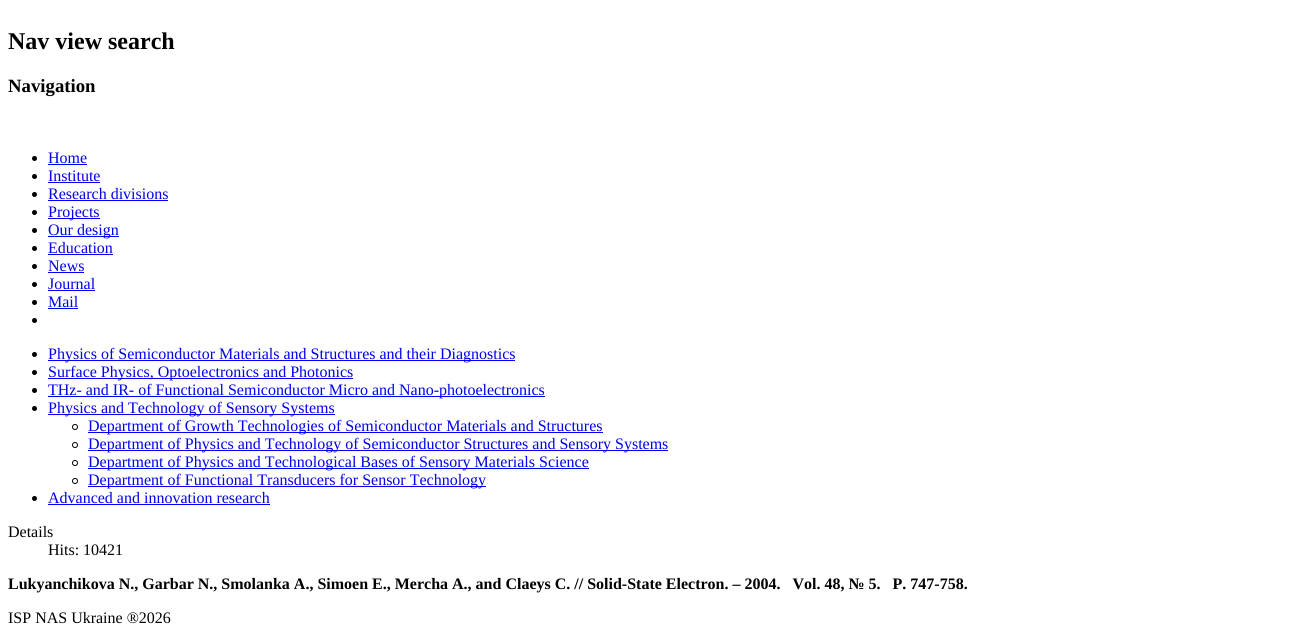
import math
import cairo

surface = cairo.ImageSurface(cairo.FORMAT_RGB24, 1291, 642)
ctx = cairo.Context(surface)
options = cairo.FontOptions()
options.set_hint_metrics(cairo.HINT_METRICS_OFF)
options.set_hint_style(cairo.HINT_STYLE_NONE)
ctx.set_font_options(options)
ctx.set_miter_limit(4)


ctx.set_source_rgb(1, 1, 1)
ctx.paint()
ctx.select_font_face("Liberation Serif", cairo.FONT_SLANT_NORMAL, cairo.FONT_WEIGHT_BOLD)
ctx.set_font_size(24)
ctx.set_source_rgb(0, 0, 0)
ctx.move_to(8, 49)
ctx.show_text("Nav view search")
ctx.set_font_size(18.75)
ctx.move_to(8, 92)
ctx.show_text("Navigation")
ctx.new_path()
ctx.arc(34.5, 158.5, 2.5, 0, 2 * math.pi)
ctx.fill()
ctx.select_font_face("Liberation Serif")
ctx.set_font_size(16)
ctx.set_source_rgb(0, 0, 0.933)
ctx.move_to(48, 163)
ctx.show_text("Home")
ctx.rectangle(48, 164, 39, 1)
ctx.fill()
ctx.set_source_rgb(0, 0, 0)
ctx.arc(34.5, 176.5, 2.5, 0, 2 * math.pi)
ctx.fill()
ctx.set_source_rgb(0, 0, 0.933)
ctx.move_to(48, 181)
ctx.show_text("Institute")
ctx.rectangle(48, 182, 52, 1)
ctx.fill()
ctx.set_source_rgb(0, 0, 0)
ctx.arc(34.5, 194.5, 2.5, 0, 2 * math.pi)
ctx.fill()
ctx.set_source_rgb(0, 0, 0.933)
ctx.move_to(48, 199)
ctx.show_text("Research divisions")
ctx.rectangle(48, 200, 120, 1)
ctx.fill()
ctx.set_source_rgb(0, 0, 0)
ctx.arc(34.5, 212.5, 2.5, 0, 2 * math.pi)
ctx.fill()
ctx.set_source_rgb(0, 0, 0.933)
ctx.rectangle(48, 218, 52, 1)
ctx.fill()
ctx.move_to(48, 217)
ctx.show_text("Projects")
ctx.set_source_rgb(0, 0, 0)
ctx.new_path()
ctx.arc(34.5, 230.5, 2.5, 0, 2 * math.pi)
ctx.fill()
ctx.set_source_rgb(0, 0, 0.933)
ctx.rectangle(48, 236, 71, 1)
ctx.fill()
ctx.move_to(48, 235)
ctx.show_text("Our design")
ctx.set_source_rgb(0, 0, 0)
ctx.new_path()
ctx.arc(34.5, 248.5, 2.5, 0, 2 * math.pi)
ctx.fill()
ctx.set_source_rgb(0, 0, 0.933)
ctx.move_to(48, 253)
ctx.show_text("Education")
ctx.rectangle(48, 254, 65, 1)
ctx.fill()
ctx.set_source_rgb(0, 0, 0)
ctx.arc(34.5, 266.5, 2.5, 0, 2 * math.pi)
ctx.fill()
ctx.set_source_rgb(0, 0, 0.933)
ctx.move_to(48, 271)
ctx.show_text("News")
ctx.rectangle(48, 272, 36, 1)
ctx.fill()
ctx.set_source_rgb(0, 0, 0)
ctx.arc(34.5, 284.5, 2.5, 0, 2 * math.pi)
ctx.fill()
ctx.set_source_rgb(0, 0, 0.933)
ctx.move_to(48, 289)
ctx.show_text("Journal")
ctx.rectangle(48, 290, 47, 1)
ctx.fill()
ctx.set_source_rgb(0, 0, 0)
ctx.arc(34.5, 302.5, 2.5, 0, 2 * math.pi)
ctx.fill()
ctx.set_source_rgb(0, 0, 0.933)
ctx.move_to(48, 307)
ctx.show_text("Mail")
ctx.rectangle(48, 308, 30, 1)
ctx.fill()
ctx.set_source_rgb(0, 0, 0)
ctx.arc(34.5, 320.5, 2.5, 0, 2 * math.pi)
ctx.fill()
ctx.arc(34.5, 354.5, 2.5, 0, 2 * math.pi)
ctx.fill()
ctx.set_source_rgb(0, 0, 0.933)
ctx.rectangle(48, 360, 467, 1)
ctx.fill()
ctx.move_to(48, 359)
ctx.show_text("Physics of Semiconductor Materials and Structures and their Diagnostics")
ctx.set_source_rgb(0, 0, 0)
ctx.new_path()
ctx.arc(34.5, 372.5, 2.5, 0, 2 * math.pi)
ctx.fill()
ctx.set_source_rgb(0, 0, 0.933)
ctx.rectangle(48, 378, 305, 1)
ctx.fill()
ctx.move_to(48, 377)
ctx.show_text("Surface Physics, Optoelectronics and Photonics")
ctx.set_source_rgb(0, 0, 0)
ctx.new_path()
ctx.arc(34.5, 390.5, 2.5, 0, 2 * math.pi)
ctx.fill()
ctx.set_source_rgb(0, 0, 0.933)
ctx.rectangle(48, 396, 497, 1)
ctx.fill()
ctx.move_to(48, 395)
ctx.show_text("THz- and IR- of Functional Semiconductor Micro and Nano-photoelectronics")
ctx.set_source_rgb(0, 0, 0)
ctx.new_path()
ctx.arc(34.5, 408.5, 2.5, 0, 2 * math.pi)
ctx.fill()
ctx.set_source_rgb(0, 0, 0.933)
ctx.rectangle(48, 414, 287, 1)
ctx.fill()
ctx.move_to(48, 413)
ctx.show_text("Physics and Technology of Sensory Systems")
ctx.new_path()
ctx.arc(75, 427, 2.5, 0, 2 * math.pi)
ctx.set_source_rgb(0, 0, 0)
ctx.set_line_width(1)
ctx.stroke()
ctx.set_source_rgb(0, 0, 0.933)
ctx.rectangle(88, 432, 515, 1)
ctx.fill()
ctx.move_to(88, 431)
ctx.show_text("Department of Growth Technologies of Semiconductor Materials and Structures")
ctx.new_path()
ctx.arc(75, 445, 2.5, 0, 2 * math.pi)
ctx.set_source_rgb(0, 0, 0)
ctx.stroke()
ctx.set_source_rgb(0, 0, 0.933)
ctx.rectangle(88, 450, 580, 1)
ctx.fill()
ctx.move_to(88, 449)
ctx.show_text("Department of Physics and Technology of Semiconductor Structures and Sensory Systems")
ctx.new_path()
ctx.arc(75, 463, 2.5, 0, 2 * math.pi)
ctx.set_source_rgb(0, 0, 0)
ctx.stroke()
ctx.set_source_rgb(0, 0, 0.933)
ctx.rectangle(88, 468, 501, 1)
ctx.fill()
ctx.move_to(88, 467)
ctx.show_text("Department of Physics and Technological Bases of Sensory Materials Science")
ctx.new_path()
ctx.arc(75, 481, 2.5, 0, 2 * math.pi)
ctx.set_source_rgb(0, 0, 0)
ctx.stroke()
ctx.set_source_rgb(0, 0, 0.933)
ctx.rectangle(88, 486, 398, 1)
ctx.fill()
ctx.move_to(88, 485)
ctx.show_text("Department of Functional Transducers for Sensor Technology")
ctx.set_source_rgb(0, 0, 0)
ctx.new_path()
ctx.arc(34.5, 498.5, 2.5, 0, 2 * math.pi)
ctx.fill()
ctx.set_source_rgb(0, 0, 0.933)
ctx.move_to(48, 503)
ctx.show_text("Advanced and innovation research")
ctx.rectangle(48, 504, 222, 1)
ctx.fill()
ctx.set_source_rgb(0, 0, 0)
ctx.move_to(8, 537)
ctx.show_text("Details")
ctx.move_to(48, 555)
ctx.show_text("Hits: 10421")
ctx.select_font_face("Liberation Serif", cairo.FONT_SLANT_NORMAL, cairo.FONT_WEIGHT_BOLD)
ctx.move_to(8, 589)
ctx.show_text("Lukyanchikova N., Garbar N., Smolanka A., Simoen E., Mercha A., and Claeys C. // Solid-State Electron. – 2004.   Vol. 48, № 5.   P. 747-758.")
ctx.select_font_face("Liberation Serif")
ctx.move_to(8, 623)
ctx.show_text("ISP NAS Ukraine ®2026")
surface.write_to_png("page.png")
